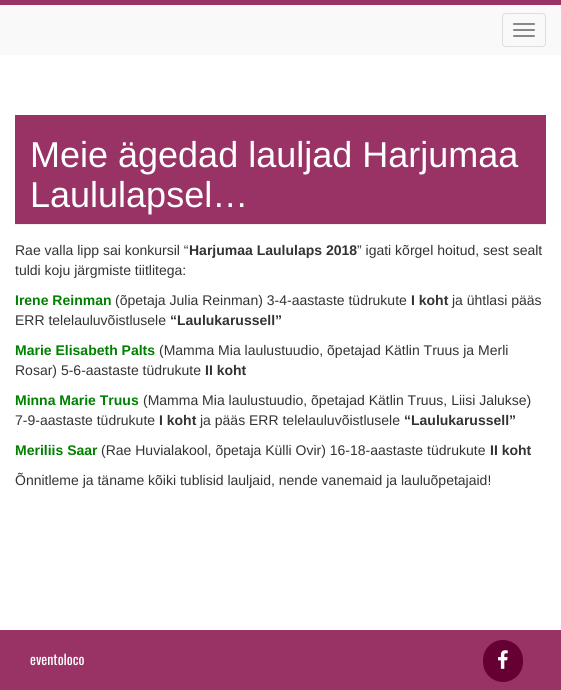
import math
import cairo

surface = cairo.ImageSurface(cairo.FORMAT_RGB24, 561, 690)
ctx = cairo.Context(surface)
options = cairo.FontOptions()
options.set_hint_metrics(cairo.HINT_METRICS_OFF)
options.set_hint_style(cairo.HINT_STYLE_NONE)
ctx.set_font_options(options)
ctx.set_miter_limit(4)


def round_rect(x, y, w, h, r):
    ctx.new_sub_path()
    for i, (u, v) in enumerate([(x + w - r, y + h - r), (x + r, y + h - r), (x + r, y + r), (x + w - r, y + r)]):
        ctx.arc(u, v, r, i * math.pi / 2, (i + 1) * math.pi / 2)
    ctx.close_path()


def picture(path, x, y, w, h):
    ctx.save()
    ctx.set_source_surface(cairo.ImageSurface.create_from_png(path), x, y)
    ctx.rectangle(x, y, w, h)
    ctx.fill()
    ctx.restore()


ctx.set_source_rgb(1, 1, 1)
ctx.paint()
ctx.set_source_rgb(0.973, 0.973, 0.973)
ctx.rectangle(0, 5, 561, 50)
ctx.fill()
ctx.set_source_rgb(0.6, 0.2, 0.4)
ctx.rectangle(0, 0, 561, 5)
ctx.fill()
round_rect(502.5, 13.5, 43, 33, 3.5)
ctx.set_source_rgb(0.867, 0.867, 0.867)
ctx.set_line_width(1)
ctx.stroke()
ctx.set_source_rgb(0.533, 0.533, 0.533)
round_rect(513, 23, 22, 2, 1)
ctx.fill()
round_rect(513, 29, 22, 2, 1)
ctx.fill()
round_rect(513, 35, 22, 2, 1)
ctx.fill()
ctx.set_source_rgb(0.933, 0.933, 0.933)
ctx.rectangle(15, 224, 531, 1)
ctx.fill()
ctx.set_source_rgb(0.6, 0.2, 0.4)
ctx.rectangle(15, 115, 531, 109)
ctx.fill()
ctx.select_font_face("Liberation Sans")
ctx.set_font_size(36)
ctx.set_source_rgb(1, 1, 1)
ctx.move_to(30, 167)
ctx.show_text("Meie ägedad lauljad Harjumaa")
ctx.move_to(30, 207)
ctx.show_text("Laululapsel…")
ctx.set_font_size(14)
ctx.set_source_rgb(0.2, 0.2, 0.2)
ctx.move_to(15, 255)
ctx.show_text("Rae valla lipp sai konkursil “")
ctx.select_font_face("Liberation Sans", cairo.FONT_SLANT_NORMAL, cairo.FONT_WEIGHT_BOLD)
ctx.move_to(189, 255)
ctx.show_text("Harjumaa Laululaps 2018")
ctx.select_font_face("Liberation Sans")
ctx.move_to(357, 255)
ctx.show_text("” igati kõrgel hoitud, sest sealt")
ctx.move_to(15, 275)
ctx.show_text("tuldi koju järgmiste tiitlitega:")
ctx.select_font_face("Liberation Sans", cairo.FONT_SLANT_NORMAL, cairo.FONT_WEIGHT_BOLD)
ctx.set_source_rgb(0, 0.502, 0)
ctx.move_to(15, 305)
ctx.show_text("Irene Reinman")
ctx.select_font_face("Liberation Sans")
ctx.set_source_rgb(0.2, 0.2, 0.2)
ctx.move_to(115, 305)
ctx.show_text("(õpetaja Julia Reinman) 3-4-aastaste tüdrukute")
ctx.select_font_face("Liberation Sans", cairo.FONT_SLANT_NORMAL, cairo.FONT_WEIGHT_BOLD)
ctx.move_to(411, 305)
ctx.show_text("I koht")
ctx.select_font_face("Liberation Sans")
ctx.move_to(452, 305)
ctx.show_text("ja ühtlasi pääs")
ctx.move_to(15, 325)
ctx.show_text("ERR telelauluvõistlusele")
ctx.select_font_face("Liberation Sans", cairo.FONT_SLANT_NORMAL, cairo.FONT_WEIGHT_BOLD)
ctx.move_to(170, 325)
ctx.show_text("“Laulukarussell”")
ctx.set_source_rgb(0, 0.502, 0)
ctx.move_to(15, 355)
ctx.show_text("Marie Elisabeth Palts")
ctx.select_font_face("Liberation Sans")
ctx.set_source_rgb(0.2, 0.2, 0.2)
ctx.move_to(159, 355)
ctx.show_text("(Mamma Mia laulustuudio, õpetajad Kätlin Truus ja Merli")
ctx.move_to(15, 375)
ctx.show_text("Rosar) 5-6-aastaste tüdrukute")
ctx.select_font_face("Liberation Sans", cairo.FONT_SLANT_NORMAL, cairo.FONT_WEIGHT_BOLD)
ctx.move_to(205, 375)
ctx.show_text("II koht")
ctx.set_source_rgb(0, 0.502, 0)
ctx.move_to(15, 405)
ctx.show_text("Minna Marie Truus")
ctx.select_font_face("Liberation Sans")
ctx.set_source_rgb(0.2, 0.2, 0.2)
ctx.move_to(143, 405)
ctx.show_text("(Mamma Mia laulustuudio, õpetajad Kätlin Truus, Liisi Jalukse)")
ctx.move_to(15, 425)
ctx.show_text("7-9-aastaste tüdrukute")
ctx.select_font_face("Liberation Sans", cairo.FONT_SLANT_NORMAL, cairo.FONT_WEIGHT_BOLD)
ctx.move_to(159, 425)
ctx.show_text("I koht")
ctx.select_font_face("Liberation Sans")
ctx.move_to(200, 425)
ctx.show_text("ja pääs ERR telelauluvõistlusele")
ctx.select_font_face("Liberation Sans", cairo.FONT_SLANT_NORMAL, cairo.FONT_WEIGHT_BOLD)
ctx.move_to(404, 425)
ctx.show_text("“Laulukarussell”")
ctx.set_source_rgb(0, 0.502, 0)
ctx.move_to(15, 455)
ctx.show_text("Meriliis Saar")
ctx.select_font_face("Liberation Sans")
ctx.set_source_rgb(0.2, 0.2, 0.2)
ctx.move_to(101, 455)
ctx.show_text("(Rae Huvialakool, õpetaja Külli Ovir) 16-18-aastaste tüdrukute")
ctx.select_font_face("Liberation Sans", cairo.FONT_SLANT_NORMAL, cairo.FONT_WEIGHT_BOLD)
ctx.move_to(490, 455)
ctx.show_text("II koht")
ctx.select_font_face("Liberation Sans")
ctx.move_to(15, 485)
ctx.show_text("Õnnitleme ja täname kõiki tublisid lauljaid, nende vanemaid ja lauluõpetajaid!")
ctx.set_source_rgb(0.6, 0.2, 0.4)
ctx.rectangle(0, 630, 561, 60)
ctx.fill()
ctx.select_font_face("Oswald")
ctx.set_source_rgb(1, 1, 1)
ctx.move_to(30, 665)
ctx.show_text("eventoloco")
ctx.set_source_rgb(0.4, 0, 0.2)
round_rect(483, 640, 40, 42, 20)
ctx.fill()
picture("img1.png", 498, 650, 10, 19)
surface.write_to_png("page.png")
